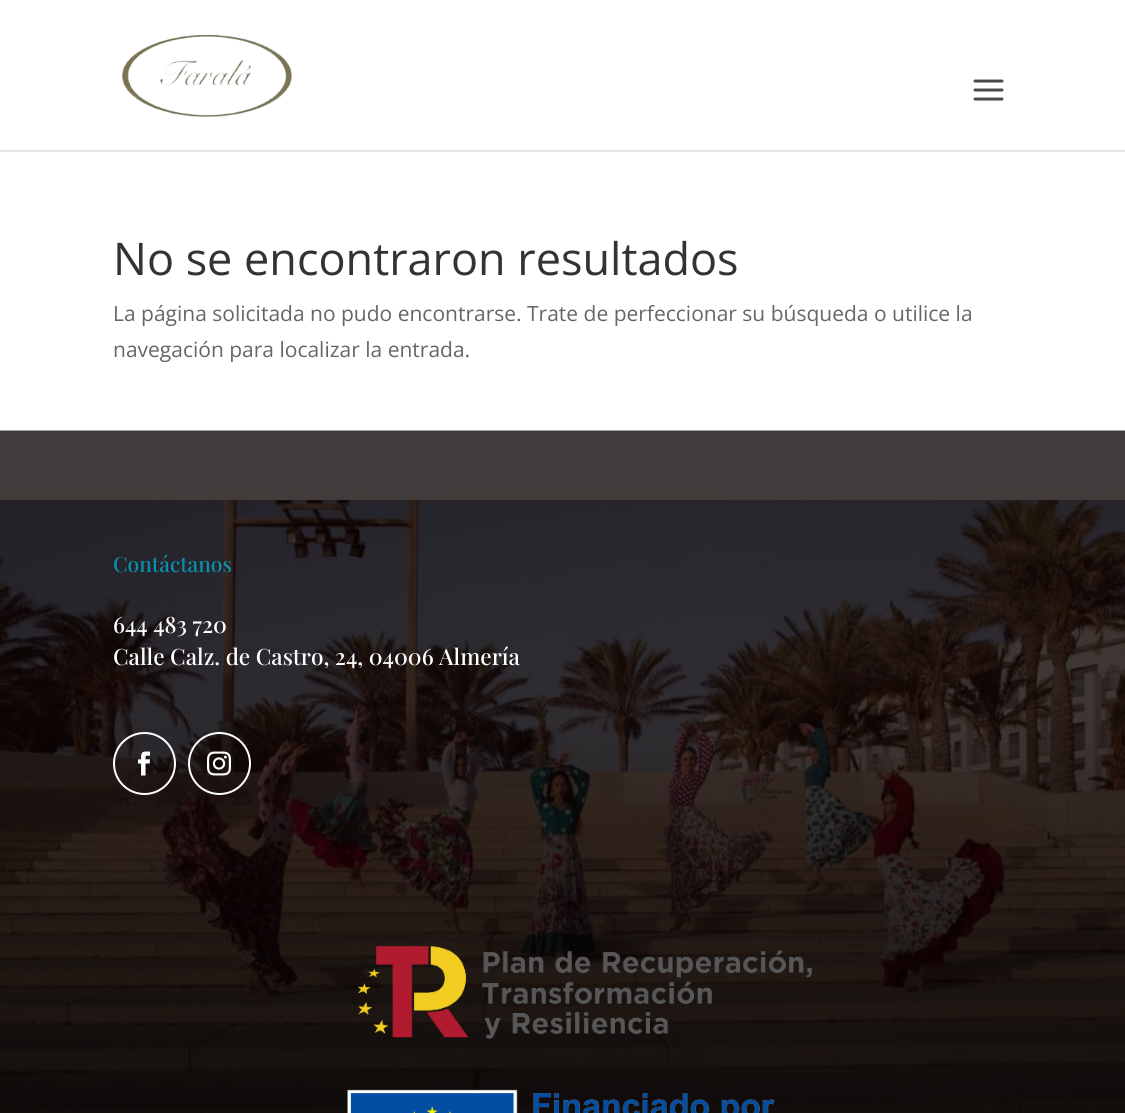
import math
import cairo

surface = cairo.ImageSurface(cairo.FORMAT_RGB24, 1125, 1113)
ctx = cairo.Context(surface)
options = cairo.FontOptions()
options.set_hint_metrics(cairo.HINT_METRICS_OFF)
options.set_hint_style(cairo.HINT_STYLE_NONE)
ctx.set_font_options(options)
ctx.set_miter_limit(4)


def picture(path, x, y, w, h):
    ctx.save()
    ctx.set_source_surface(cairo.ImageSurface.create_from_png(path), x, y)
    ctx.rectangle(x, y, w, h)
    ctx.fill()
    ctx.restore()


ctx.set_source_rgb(1, 1, 1)
ctx.paint()
ctx.set_source_rgb(0.902, 0.902, 0.902)
ctx.rectangle(0, 150, 1125, 2)
ctx.fill()
picture("img1.png", 122, 34, 170, 83)
picture("img2.png", 973, 79, 31, 22)
ctx.select_font_face("Open Sans")
ctx.set_font_size(45)
ctx.set_source_rgb(0.2, 0.2, 0.2)
ctx.move_to(113, 275)
ctx.show_text("No se encontraron resultados")
ctx.set_font_size(21)
ctx.set_source_rgb(0.4, 0.4, 0.4)
ctx.move_to(113, 321)
ctx.show_text("La página solicitada no pudo encontrarse. Trate de perfeccionar su búsqueda o utilice la")
ctx.move_to(113, 357)
ctx.show_text("navegación para localizar la entrada.")
picture("img3.png", 0, 430, 1125, 683)
ctx.select_font_face("Playfair Display Medium")
ctx.set_source_rgb(0.039, 0.569, 0.686)
ctx.move_to(113, 572)
ctx.show_text("Contáctanos")
ctx.set_font_size(22.5)
ctx.set_source_rgb(1, 1, 1)
ctx.move_to(113, 633)
ctx.show_text("644 483 720")
ctx.move_to(113, 665)
ctx.show_text("Calle Calz. de Castro, 24, 04006 Almería")
ctx.new_path()
ctx.arc(144.5, 763.5, 30.5, 0, 2 * math.pi)
ctx.stroke()
picture("img4.png", 138, 751, 13, 25)
ctx.arc(219.5, 763.5, 30.5, 0, 2 * math.pi)
ctx.stroke()
picture("img5.png", 207, 751, 24, 25)
picture("img6.png", 347, 946, 465, 167)
surface.write_to_png("page.png")
